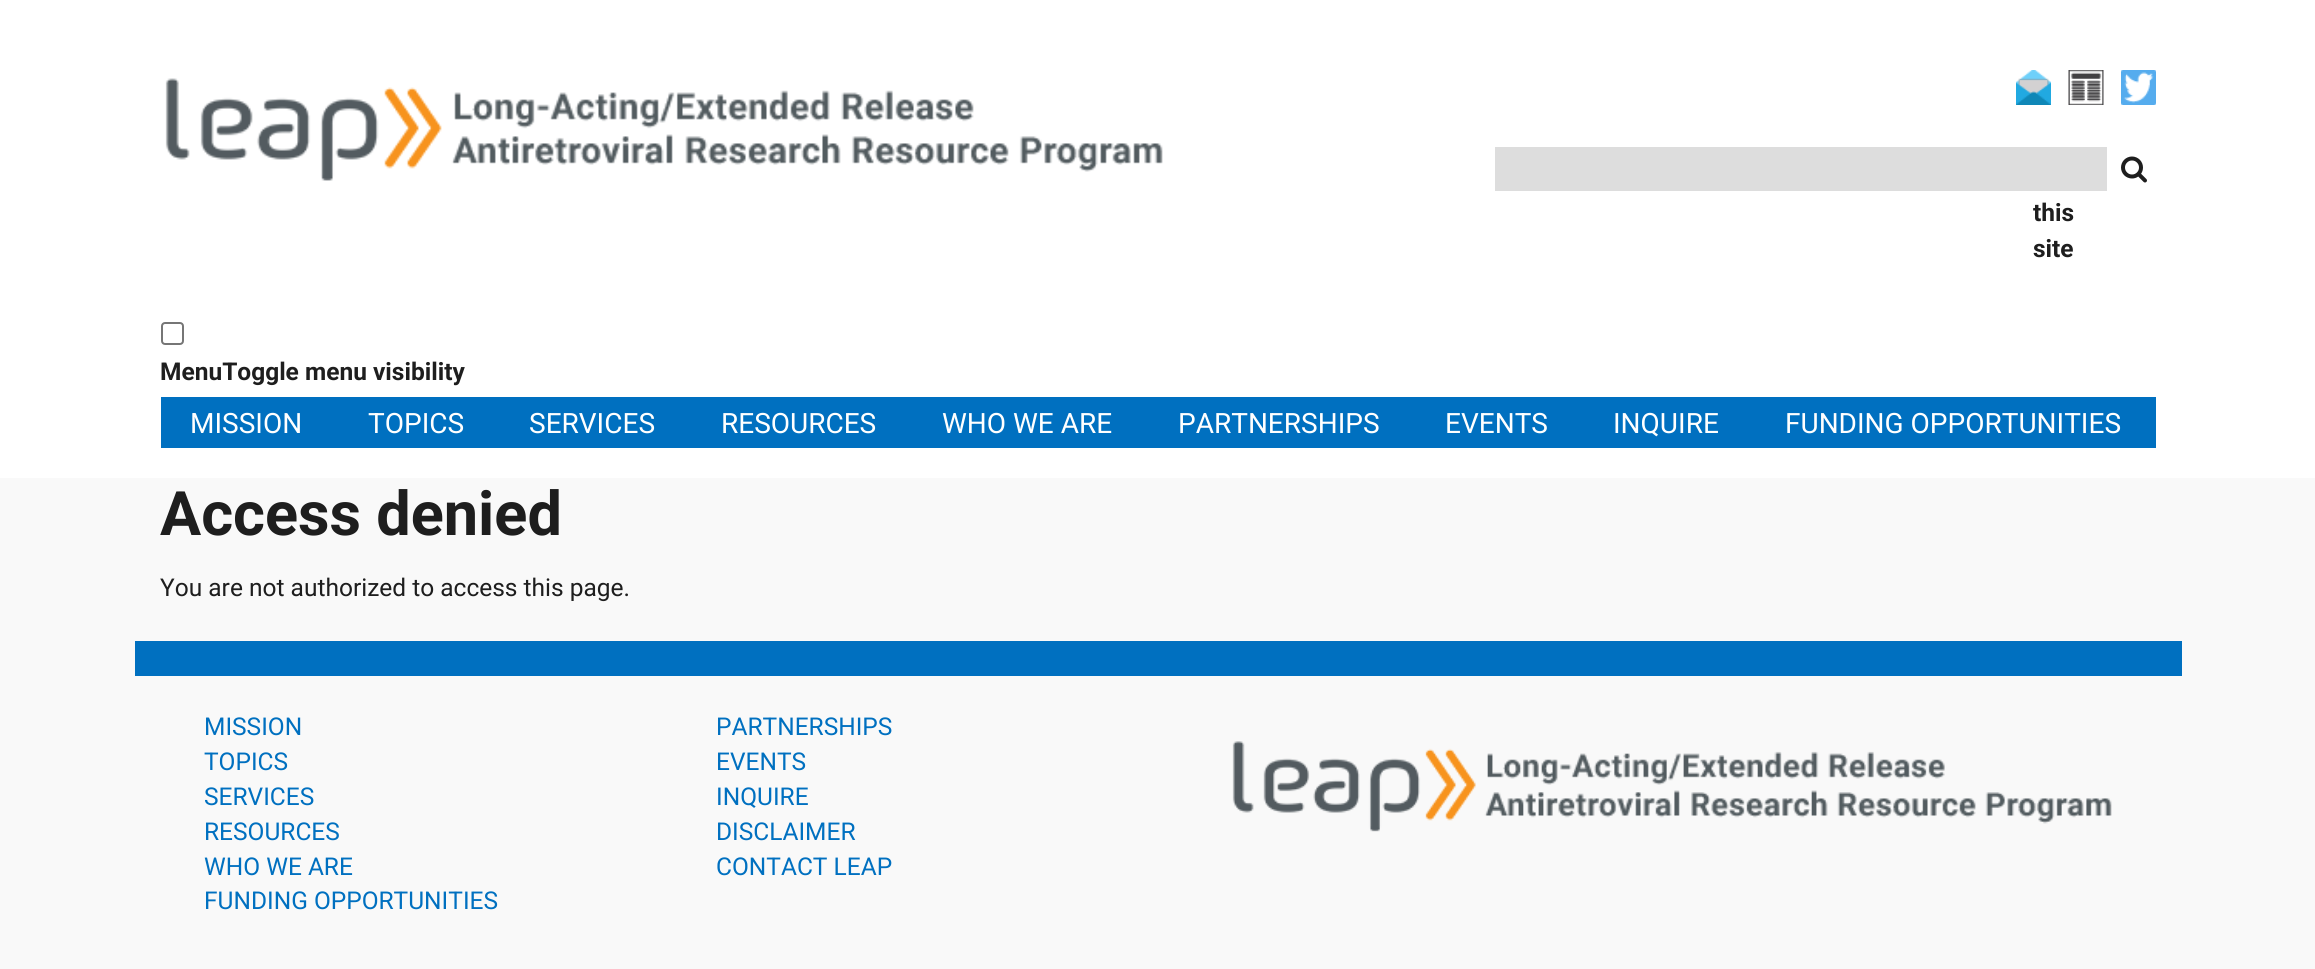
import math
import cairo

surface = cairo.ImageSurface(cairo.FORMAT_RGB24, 2315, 969)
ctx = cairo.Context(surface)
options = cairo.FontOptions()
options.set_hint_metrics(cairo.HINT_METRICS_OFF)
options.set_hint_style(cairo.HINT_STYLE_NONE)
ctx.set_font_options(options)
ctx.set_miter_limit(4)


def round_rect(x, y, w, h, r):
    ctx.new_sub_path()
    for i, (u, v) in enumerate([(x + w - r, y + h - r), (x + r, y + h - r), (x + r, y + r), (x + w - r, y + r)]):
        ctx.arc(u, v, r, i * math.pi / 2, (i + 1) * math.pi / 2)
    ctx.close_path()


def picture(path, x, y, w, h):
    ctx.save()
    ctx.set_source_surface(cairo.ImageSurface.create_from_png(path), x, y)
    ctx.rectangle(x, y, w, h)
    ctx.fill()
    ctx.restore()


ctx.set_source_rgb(0.973, 0.973, 0.973)
ctx.paint()
ctx.set_source_rgb(1, 1, 1)
ctx.rectangle(0, 0, 2315, 478)
ctx.fill()
picture("img1.png", 165, 78, 998, 103)
picture("img2.png", 2016, 70, 35, 35)
picture("img3.png", 2068, 70, 36, 35)
picture("img4.png", 2121, 70, 35, 35)
picture("img5.png", 2121, 156, 26, 27)
ctx.set_source_rgb(0.867, 0.867, 0.867)
ctx.rectangle(1495, 147, 612, 44)
ctx.fill()
ctx.select_font_face("Roboto", cairo.FONT_SLANT_NORMAL, cairo.FONT_WEIGHT_BOLD)
ctx.set_font_size(24.5)
ctx.set_source_rgb(0.118, 0.118, 0.118)
ctx.move_to(2033, 221)
ctx.show_text("this")
ctx.move_to(2033, 257)
ctx.show_text("site")
round_rect(162, 323, 21, 21, 3)
ctx.set_source_rgb(0.463, 0.463, 0.463)
ctx.stroke()
ctx.set_source_rgb(0.118, 0.118, 0.118)
ctx.move_to(160, 380)
ctx.show_text("MenuToggle menu visibility")
ctx.set_source_rgb(0, 0.439, 0.753)
ctx.rectangle(161, 397, 1995, 51)
ctx.fill()
ctx.select_font_face("Roboto")
ctx.set_font_size(28)
ctx.set_source_rgb(1, 1, 1)
ctx.move_to(190, 433)
ctx.show_text("MISSION")
ctx.move_to(368, 433)
ctx.show_text("TOPICS")
ctx.move_to(529, 433)
ctx.show_text("SERVICES")
ctx.move_to(721, 433)
ctx.show_text("RESOURCES")
ctx.move_to(942, 433)
ctx.show_text("WHO WE ARE")
ctx.move_to(1178, 433)
ctx.show_text("PARTNERSHIPS")
ctx.move_to(1445, 433)
ctx.show_text("EVENTS")
ctx.move_to(1613, 433)
ctx.show_text("INQUIRE")
ctx.move_to(1785, 433)
ctx.show_text("FUNDING OPPORTUNITIES")
ctx.select_font_face("Roboto", cairo.FONT_SLANT_NORMAL, cairo.FONT_WEIGHT_BOLD)
ctx.set_font_size(61.25)
ctx.set_source_rgb(0.118, 0.118, 0.118)
ctx.move_to(160, 535)
ctx.show_text("Access denied")
ctx.select_font_face("Roboto")
ctx.set_font_size(24.5)
ctx.move_to(160, 596)
ctx.show_text("You are not authorized to access this page.")
ctx.set_source_rgb(0, 0.439, 0.753)
ctx.rectangle(135, 641, 2047, 35)
ctx.fill()
ctx.move_to(204, 735)
ctx.show_text("MISSION")
ctx.move_to(204, 770)
ctx.show_text("TOPICS")
ctx.move_to(204, 805)
ctx.show_text("SERVICES")
ctx.move_to(204, 840)
ctx.show_text("RESOURCES")
ctx.move_to(204, 875)
ctx.show_text("WHO WE ARE")
ctx.move_to(204, 909)
ctx.show_text("FUNDING OPPORTUNITIES")
ctx.move_to(716, 735)
ctx.show_text("PARTNERSHIPS")
ctx.move_to(716, 770)
ctx.show_text("EVENTS")
ctx.move_to(716, 805)
ctx.show_text("INQUIRE")
ctx.move_to(716, 840)
ctx.show_text("DISCLAIMER")
ctx.move_to(716, 875)
ctx.show_text("CONTACT LEAP")
picture("img6.png", 1232, 741, 880, 91)
surface.write_to_png("page.png")
